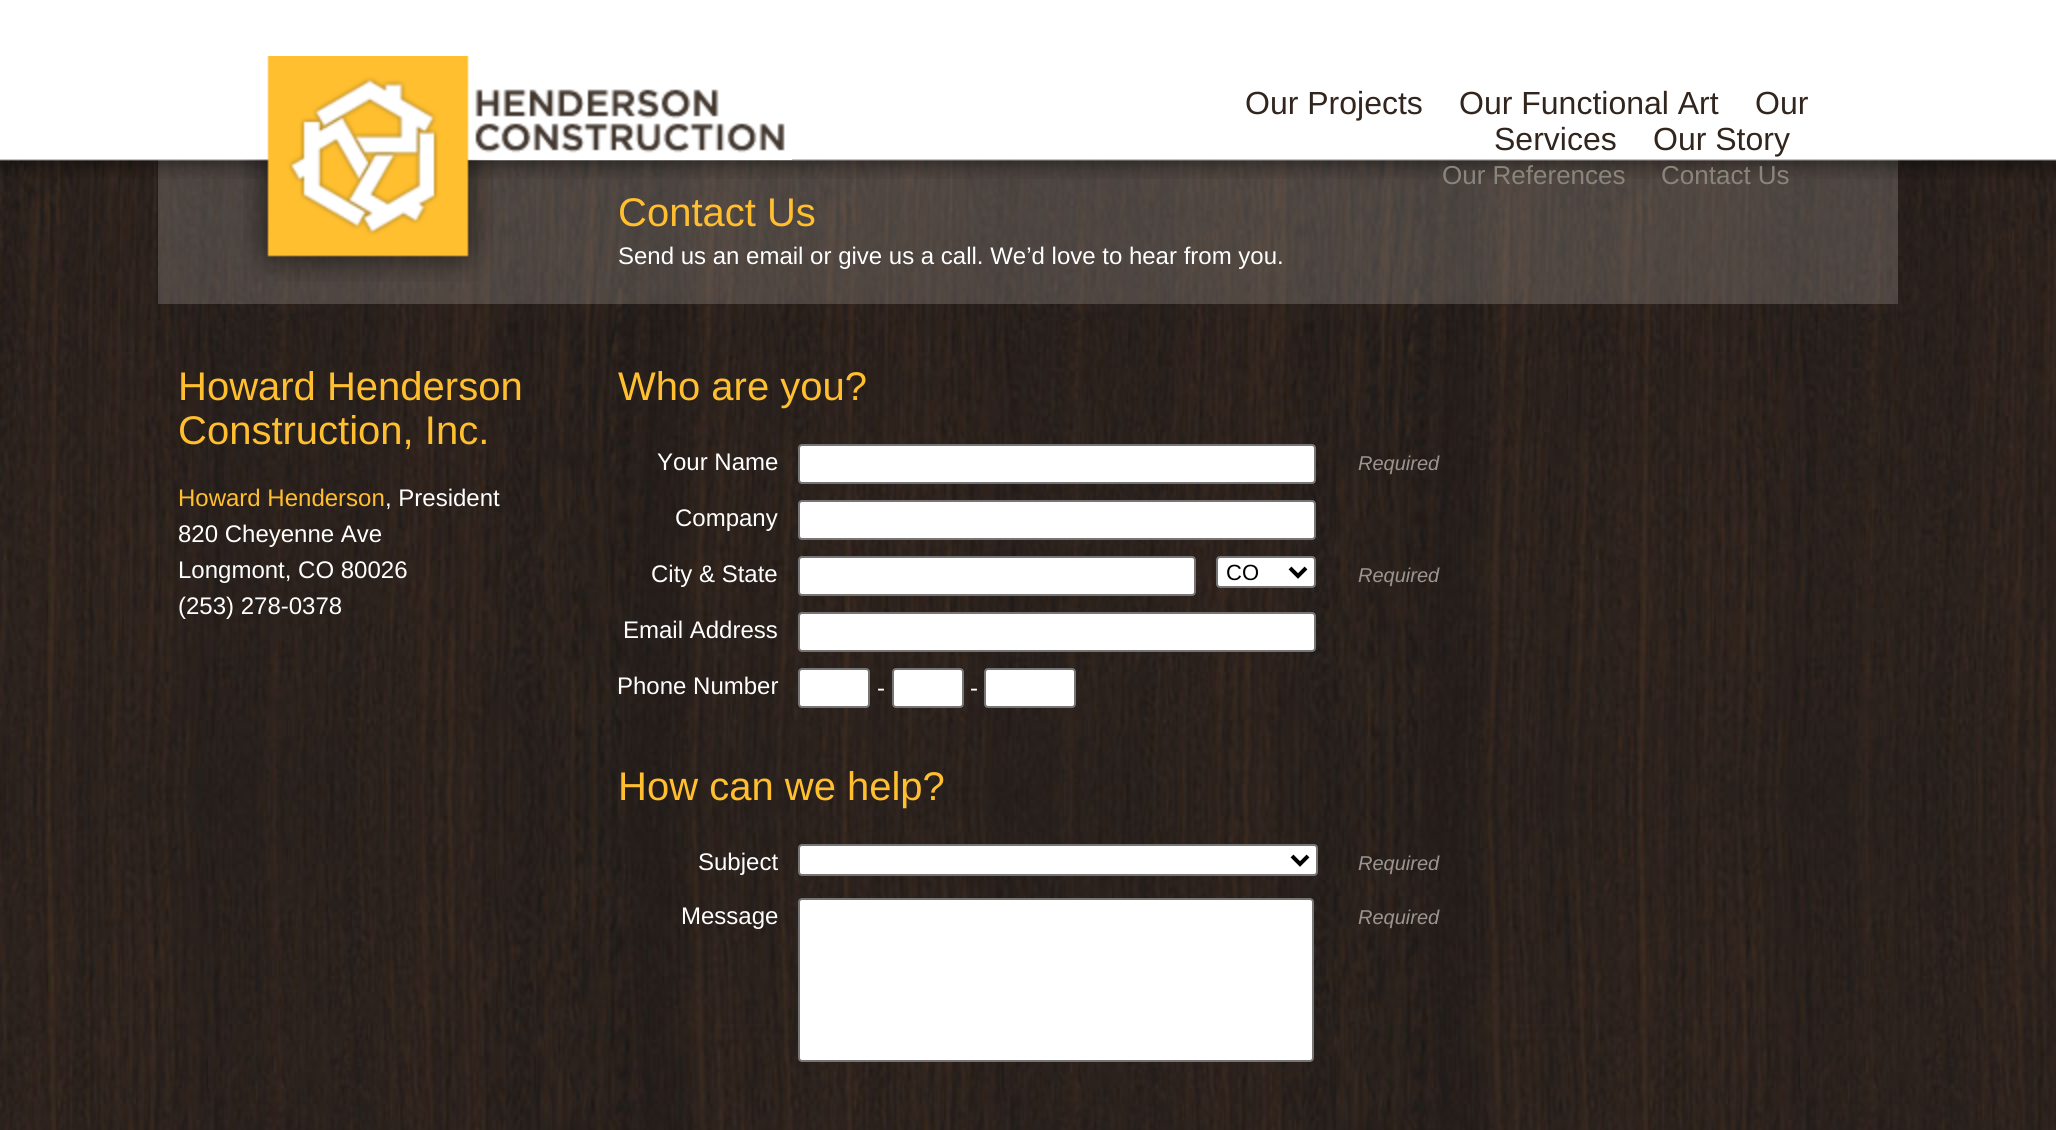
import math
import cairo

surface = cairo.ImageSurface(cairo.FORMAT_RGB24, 2056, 1130)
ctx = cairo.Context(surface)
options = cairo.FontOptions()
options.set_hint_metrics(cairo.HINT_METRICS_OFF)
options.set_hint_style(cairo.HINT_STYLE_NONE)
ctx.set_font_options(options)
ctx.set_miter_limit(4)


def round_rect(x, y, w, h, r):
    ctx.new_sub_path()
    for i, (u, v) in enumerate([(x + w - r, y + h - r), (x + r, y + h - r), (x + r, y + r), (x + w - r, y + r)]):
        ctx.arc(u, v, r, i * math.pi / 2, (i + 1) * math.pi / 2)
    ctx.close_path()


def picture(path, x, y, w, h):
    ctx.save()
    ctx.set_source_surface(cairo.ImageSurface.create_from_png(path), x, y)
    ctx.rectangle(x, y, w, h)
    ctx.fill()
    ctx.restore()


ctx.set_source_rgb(1, 1, 1)
ctx.paint()
picture("img1.png", 0, 159, 2056, 971)
ctx.set_source_rgba(0.765, 0.733, 0.702, 0.25)
ctx.rectangle(158, 160, 1740, 144)
ctx.fill()
picture("img2.png", 0, 0, 2056, 179)
picture("img3.png", 468, 89, 324, 71)
picture("img4.png", 243, 56, 250, 226)
ctx.select_font_face("Liberation Sans")
ctx.set_font_size(32)
ctx.set_source_rgb(0.192, 0.145, 0.118)
ctx.move_to(1245, 114)
ctx.show_text("Our Projects")
ctx.move_to(1459, 114)
ctx.show_text("Our Functional Art")
ctx.move_to(1755, 114)
ctx.show_text("Our")
ctx.move_to(1494, 150)
ctx.show_text("Services")
ctx.move_to(1653, 150)
ctx.show_text("Our Story")
ctx.set_font_size(26)
ctx.set_source_rgb(0.537, 0.518, 0.486)
ctx.move_to(1442, 184)
ctx.show_text("Our References")
ctx.move_to(1661, 184)
ctx.show_text("Contact Us")
ctx.set_font_size(40)
ctx.set_source_rgb(1, 0.749, 0.184)
ctx.move_to(618, 226)
ctx.show_text("Contact Us")
ctx.set_font_size(24)
ctx.set_source_rgb(1, 1, 1)
ctx.move_to(618, 264)
ctx.show_text("Send us an email or give us a call. We’d love to hear from you.")
ctx.set_font_size(40)
ctx.set_source_rgb(1, 0.749, 0.184)
ctx.move_to(178, 400)
ctx.show_text("Howard Henderson")
ctx.move_to(178, 444)
ctx.show_text("Construction, Inc.")
ctx.set_font_size(24)
ctx.move_to(178, 506)
ctx.show_text("Howard Henderson")
ctx.set_source_rgb(1, 1, 1)
ctx.move_to(385, 506)
ctx.show_text(", President")
ctx.move_to(178, 542)
ctx.show_text("820 Cheyenne Ave")
ctx.move_to(178, 578)
ctx.show_text("Longmont, CO 80026")
ctx.move_to(178, 614)
ctx.show_text("(253) 278-0378")
ctx.set_font_size(40)
ctx.set_source_rgb(1, 0.749, 0.184)
ctx.move_to(618, 400)
ctx.show_text("Who are you?")
ctx.set_font_size(24)
ctx.set_source_rgb(1, 1, 1)
ctx.move_to(657, 470)
ctx.show_text("Your Name")
round_rect(799, 445, 516, 38, 3)
ctx.fill_preserve()
ctx.set_source_rgb(0.463, 0.463, 0.463)
ctx.stroke()
ctx.select_font_face("Liberation Sans", cairo.FONT_SLANT_ITALIC)
ctx.set_font_size(20)
ctx.set_source_rgb(0.608, 0.584, 0.569)
ctx.move_to(1358, 470)
ctx.show_text("Required")
ctx.select_font_face("Liberation Sans")
ctx.set_font_size(24)
ctx.set_source_rgb(1, 1, 1)
ctx.move_to(675, 526)
ctx.show_text("Company")
round_rect(799, 501, 516, 38, 3)
ctx.fill_preserve()
ctx.set_source_rgb(0.463, 0.463, 0.463)
ctx.stroke()
ctx.set_source_rgb(1, 1, 1)
ctx.move_to(651, 582)
ctx.show_text("City & State")
round_rect(799, 557, 396, 38, 3)
ctx.fill_preserve()
ctx.set_source_rgb(0.463, 0.463, 0.463)
ctx.stroke()
ctx.set_source_rgb(1, 1, 1)
round_rect(1217, 557, 98, 30, 3)
ctx.fill_preserve()
ctx.set_source_rgb(0.463, 0.463, 0.463)
ctx.stroke()
ctx.new_path()
ctx.move_to(1290, 568)
ctx.line_to(1298, 576)
ctx.line_to(1306, 568)
ctx.set_source_rgb(0, 0, 0)
ctx.set_line_width(4)
ctx.stroke()
ctx.set_font_size(22)
ctx.move_to(1226, 580)
ctx.show_text("CO")
ctx.select_font_face("Liberation Sans", cairo.FONT_SLANT_ITALIC)
ctx.set_font_size(20)
ctx.set_source_rgb(0.608, 0.584, 0.569)
ctx.move_to(1358, 582)
ctx.show_text("Required")
ctx.select_font_face("Liberation Sans")
ctx.set_font_size(24)
ctx.set_source_rgb(1, 1, 1)
ctx.move_to(623, 638)
ctx.show_text("Email Address")
round_rect(799, 613, 516, 38, 3)
ctx.fill_preserve()
ctx.set_source_rgb(0.463, 0.463, 0.463)
ctx.set_line_width(2)
ctx.stroke()
ctx.set_source_rgb(1, 1, 1)
ctx.move_to(617, 694)
ctx.show_text("Phone Number")
round_rect(799, 669, 70, 38, 3)
ctx.fill_preserve()
ctx.set_source_rgb(0.463, 0.463, 0.463)
ctx.stroke()
ctx.set_source_rgb(1, 1, 1)
ctx.move_to(877, 696)
ctx.show_text("-")
round_rect(893, 669, 70, 38, 3)
ctx.fill_preserve()
ctx.set_source_rgb(0.463, 0.463, 0.463)
ctx.stroke()
ctx.set_source_rgb(1, 1, 1)
ctx.move_to(970, 696)
ctx.show_text("-")
round_rect(985, 669, 90, 38, 3)
ctx.fill_preserve()
ctx.set_source_rgb(0.463, 0.463, 0.463)
ctx.stroke()
ctx.set_font_size(40)
ctx.set_source_rgb(1, 0.749, 0.184)
ctx.move_to(618, 800)
ctx.show_text("How can we help?")
ctx.set_font_size(24)
ctx.set_source_rgb(1, 1, 1)
ctx.move_to(698, 870)
ctx.show_text("Subject")
round_rect(799, 845, 518, 30, 3)
ctx.fill_preserve()
ctx.set_source_rgb(0.463, 0.463, 0.463)
ctx.stroke()
ctx.new_path()
ctx.move_to(1292, 856)
ctx.line_to(1300, 864)
ctx.line_to(1308, 856)
ctx.set_source_rgb(0, 0, 0)
ctx.set_line_width(4)
ctx.stroke()
ctx.select_font_face("Liberation Sans", cairo.FONT_SLANT_ITALIC)
ctx.set_font_size(20)
ctx.set_source_rgb(0.608, 0.584, 0.569)
ctx.move_to(1358, 870)
ctx.show_text("Required")
ctx.select_font_face("Liberation Sans")
ctx.set_font_size(24)
ctx.set_source_rgb(1, 1, 1)
ctx.move_to(681, 924)
ctx.show_text("Message")
round_rect(799, 899, 514, 162, 3)
ctx.fill_preserve()
ctx.set_source_rgb(0.463, 0.463, 0.463)
ctx.set_line_width(2)
ctx.stroke()
ctx.select_font_face("Liberation Sans", cairo.FONT_SLANT_ITALIC)
ctx.set_font_size(20)
ctx.set_source_rgb(0.608, 0.584, 0.569)
ctx.move_to(1358, 924)
ctx.show_text("Required")
surface.write_to_png("page.png")
